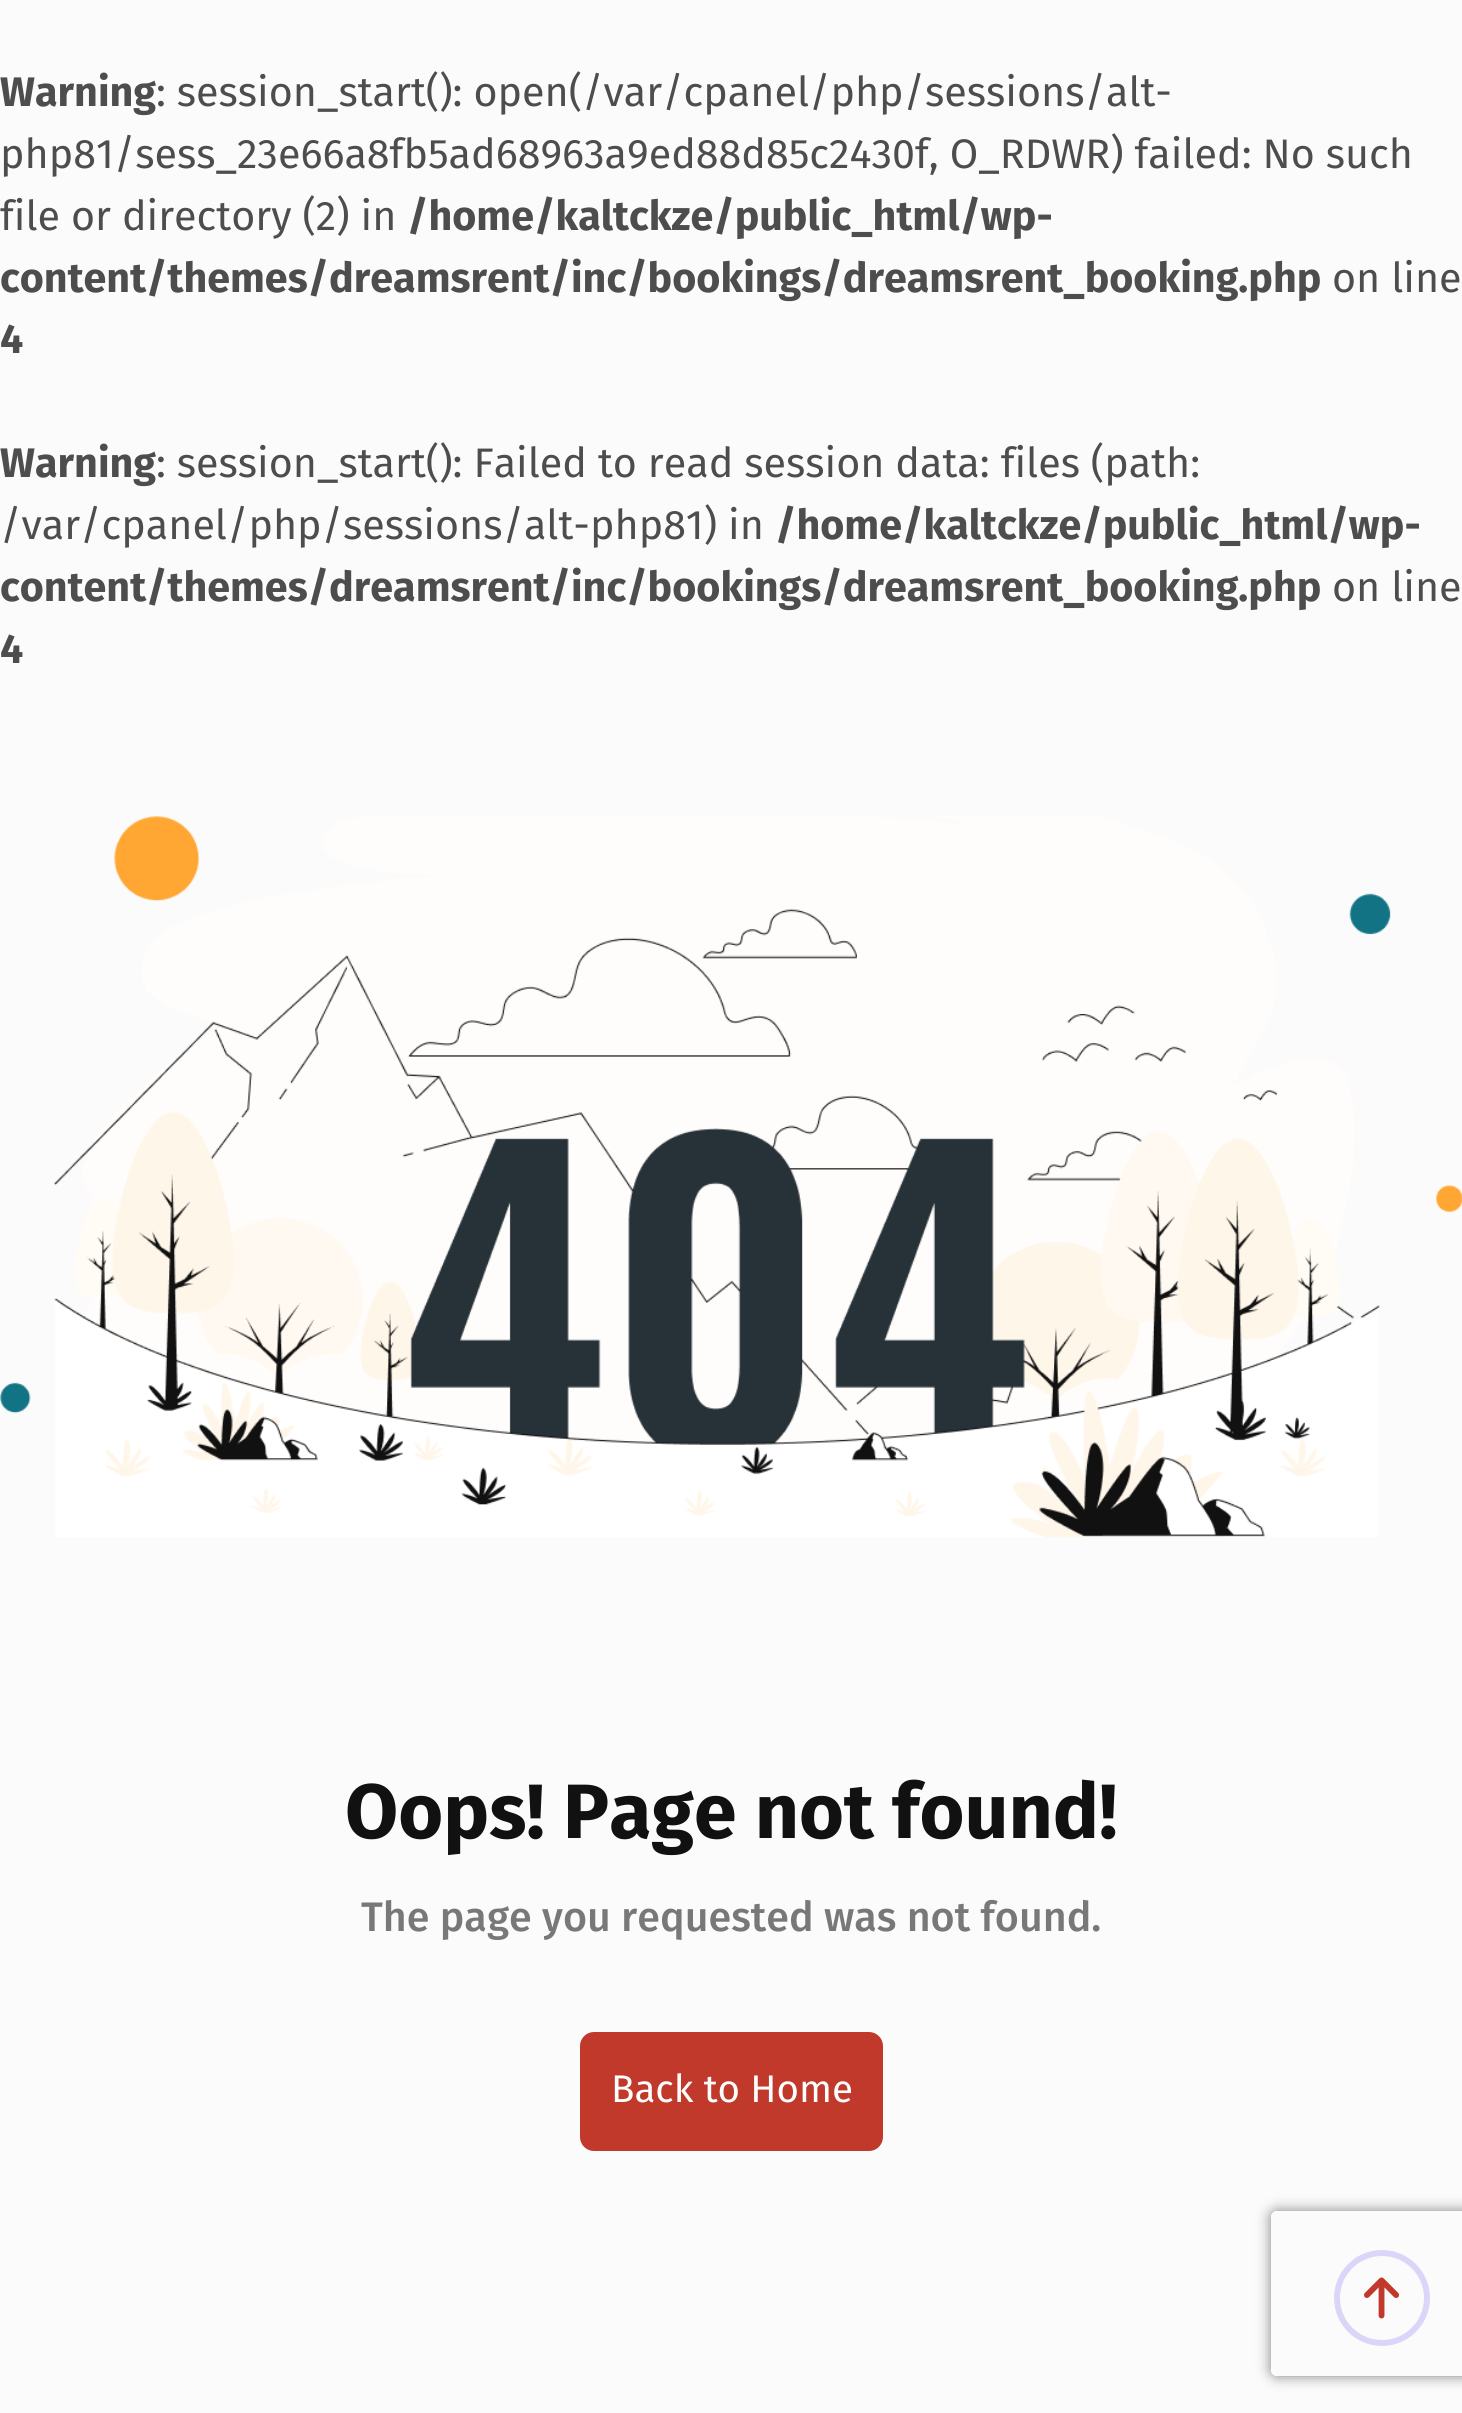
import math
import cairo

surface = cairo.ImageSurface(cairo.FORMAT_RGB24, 1462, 2413)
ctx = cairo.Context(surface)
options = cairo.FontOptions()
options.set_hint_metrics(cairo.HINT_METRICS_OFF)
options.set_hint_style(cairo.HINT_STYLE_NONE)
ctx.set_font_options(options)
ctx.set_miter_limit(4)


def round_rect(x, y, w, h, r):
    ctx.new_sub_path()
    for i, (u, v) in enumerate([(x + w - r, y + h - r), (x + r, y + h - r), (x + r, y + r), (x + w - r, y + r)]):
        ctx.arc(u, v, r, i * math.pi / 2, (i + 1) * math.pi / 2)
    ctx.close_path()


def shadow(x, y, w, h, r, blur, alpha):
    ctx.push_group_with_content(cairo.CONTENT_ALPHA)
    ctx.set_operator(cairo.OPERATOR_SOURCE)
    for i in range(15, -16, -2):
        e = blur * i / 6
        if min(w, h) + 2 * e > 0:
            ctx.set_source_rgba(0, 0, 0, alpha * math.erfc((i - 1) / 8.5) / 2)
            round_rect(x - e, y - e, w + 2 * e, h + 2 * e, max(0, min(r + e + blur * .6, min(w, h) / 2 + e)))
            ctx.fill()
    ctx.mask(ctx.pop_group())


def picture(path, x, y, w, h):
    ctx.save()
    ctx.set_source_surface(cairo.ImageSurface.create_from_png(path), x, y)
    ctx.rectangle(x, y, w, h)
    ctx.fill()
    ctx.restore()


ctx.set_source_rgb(0.988, 0.984, 0.984)
ctx.paint()
ctx.select_font_face("Fira Sans", cairo.FONT_SLANT_NORMAL, cairo.FONT_WEIGHT_BOLD)
ctx.set_font_size(41.25)
ctx.set_source_rgb(0.302, 0.302, 0.302)
ctx.move_to(0, 106)
ctx.show_text("Warning")
ctx.select_font_face("Fira Sans")
ctx.move_to(156, 106)
ctx.show_text(": session_start(): open(/var/cpanel/php/sessions/alt-")
ctx.move_to(0, 168)
ctx.show_text("php81/sess_23e66a8fb5ad68963a9ed88d85c2430f, O_RDWR) failed: No such")
ctx.move_to(0, 230)
ctx.show_text("file or directory (2) in")
ctx.select_font_face("Fira Sans", cairo.FONT_SLANT_NORMAL, cairo.FONT_WEIGHT_BOLD)
ctx.move_to(407, 230)
ctx.show_text("/home/kaltckze/public_html/wp-")
ctx.move_to(0, 292)
ctx.show_text("content/themes/dreamsrent/inc/bookings/dreamsrent_booking.php")
ctx.select_font_face("Fira Sans")
ctx.move_to(1332, 292)
ctx.show_text("on line")
ctx.select_font_face("Fira Sans", cairo.FONT_SLANT_NORMAL, cairo.FONT_WEIGHT_BOLD)
ctx.move_to(0, 353)
ctx.show_text("4")
ctx.move_to(0, 477)
ctx.show_text("Warning")
ctx.select_font_face("Fira Sans")
ctx.move_to(156, 477)
ctx.show_text(": session_start(): Failed to read session data: files (path:")
ctx.move_to(0, 539)
ctx.show_text("/var/cpanel/php/sessions/alt-php81) in")
ctx.select_font_face("Fira Sans", cairo.FONT_SLANT_NORMAL, cairo.FONT_WEIGHT_BOLD)
ctx.move_to(775, 539)
ctx.show_text("/home/kaltckze/public_html/wp-")
ctx.move_to(0, 601)
ctx.show_text("content/themes/dreamsrent/inc/bookings/dreamsrent_booking.php")
ctx.select_font_face("Fira Sans")
ctx.move_to(1332, 601)
ctx.show_text("on line")
ctx.select_font_face("Fira Sans", cairo.FONT_SLANT_NORMAL, cairo.FONT_WEIGHT_BOLD)
ctx.move_to(0, 663)
ctx.show_text("4")
picture("img1.png", 0, 816, 1462, 721)
ctx.set_font_size(77)
ctx.set_source_rgb(0.067, 0.067, 0.067)
ctx.move_to(345, 1838)
ctx.show_text("Oops! Page not found!")
ctx.select_font_face("Fira Sans Medium")
ctx.set_font_size(41.25)
ctx.set_source_rgb(0.471, 0.471, 0.471)
ctx.move_to(361, 1931)
ctx.show_text("The page you requested was not found.")
ctx.set_source_rgb(0.753, 0.224, 0.169)
round_rect(581.5, 2033.5, 300, 116, 12.5)
ctx.fill_preserve()
ctx.set_line_width(3)
ctx.stroke()
ctx.select_font_face("Fira Sans")
ctx.set_font_size(38.5)
ctx.set_source_rgb(1, 1, 1)
ctx.move_to(611, 2102)
ctx.show_text("Back to Home")
ctx.save()
ctx.set_fill_rule(cairo.FILL_RULE_EVEN_ODD)
ctx.new_path()
ctx.move_to(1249, 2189)
ctx.line_to(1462, 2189)
ctx.line_to(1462, 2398)
ctx.line_to(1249, 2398)
ctx.close_path()
ctx.move_to(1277, 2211)
ctx.line_to(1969, 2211)
ctx.curve_to(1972.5, 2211, 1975, 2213.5, 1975, 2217)
ctx.line_to(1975, 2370)
ctx.curve_to(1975, 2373.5, 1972.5, 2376, 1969, 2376)
ctx.line_to(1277, 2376)
ctx.curve_to(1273.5, 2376, 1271, 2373.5, 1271, 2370)
ctx.line_to(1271, 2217)
ctx.curve_to(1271, 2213.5, 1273.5, 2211, 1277, 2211)
ctx.close_path()
ctx.clip()
ctx.set_source_rgb(0.502, 0.502, 0.502)
shadow(1271, 2211, 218, 165, 6, 7, 1)
ctx.restore()
ctx.arc(1382, 2298, 45, 0, 2 * math.pi)
ctx.set_source_rgb(0.851, 0.839, 0.973)
ctx.set_line_width(6)
ctx.stroke()
picture("img2.png", 1364, 2277, 35, 42)
surface.write_to_png("page.png")
